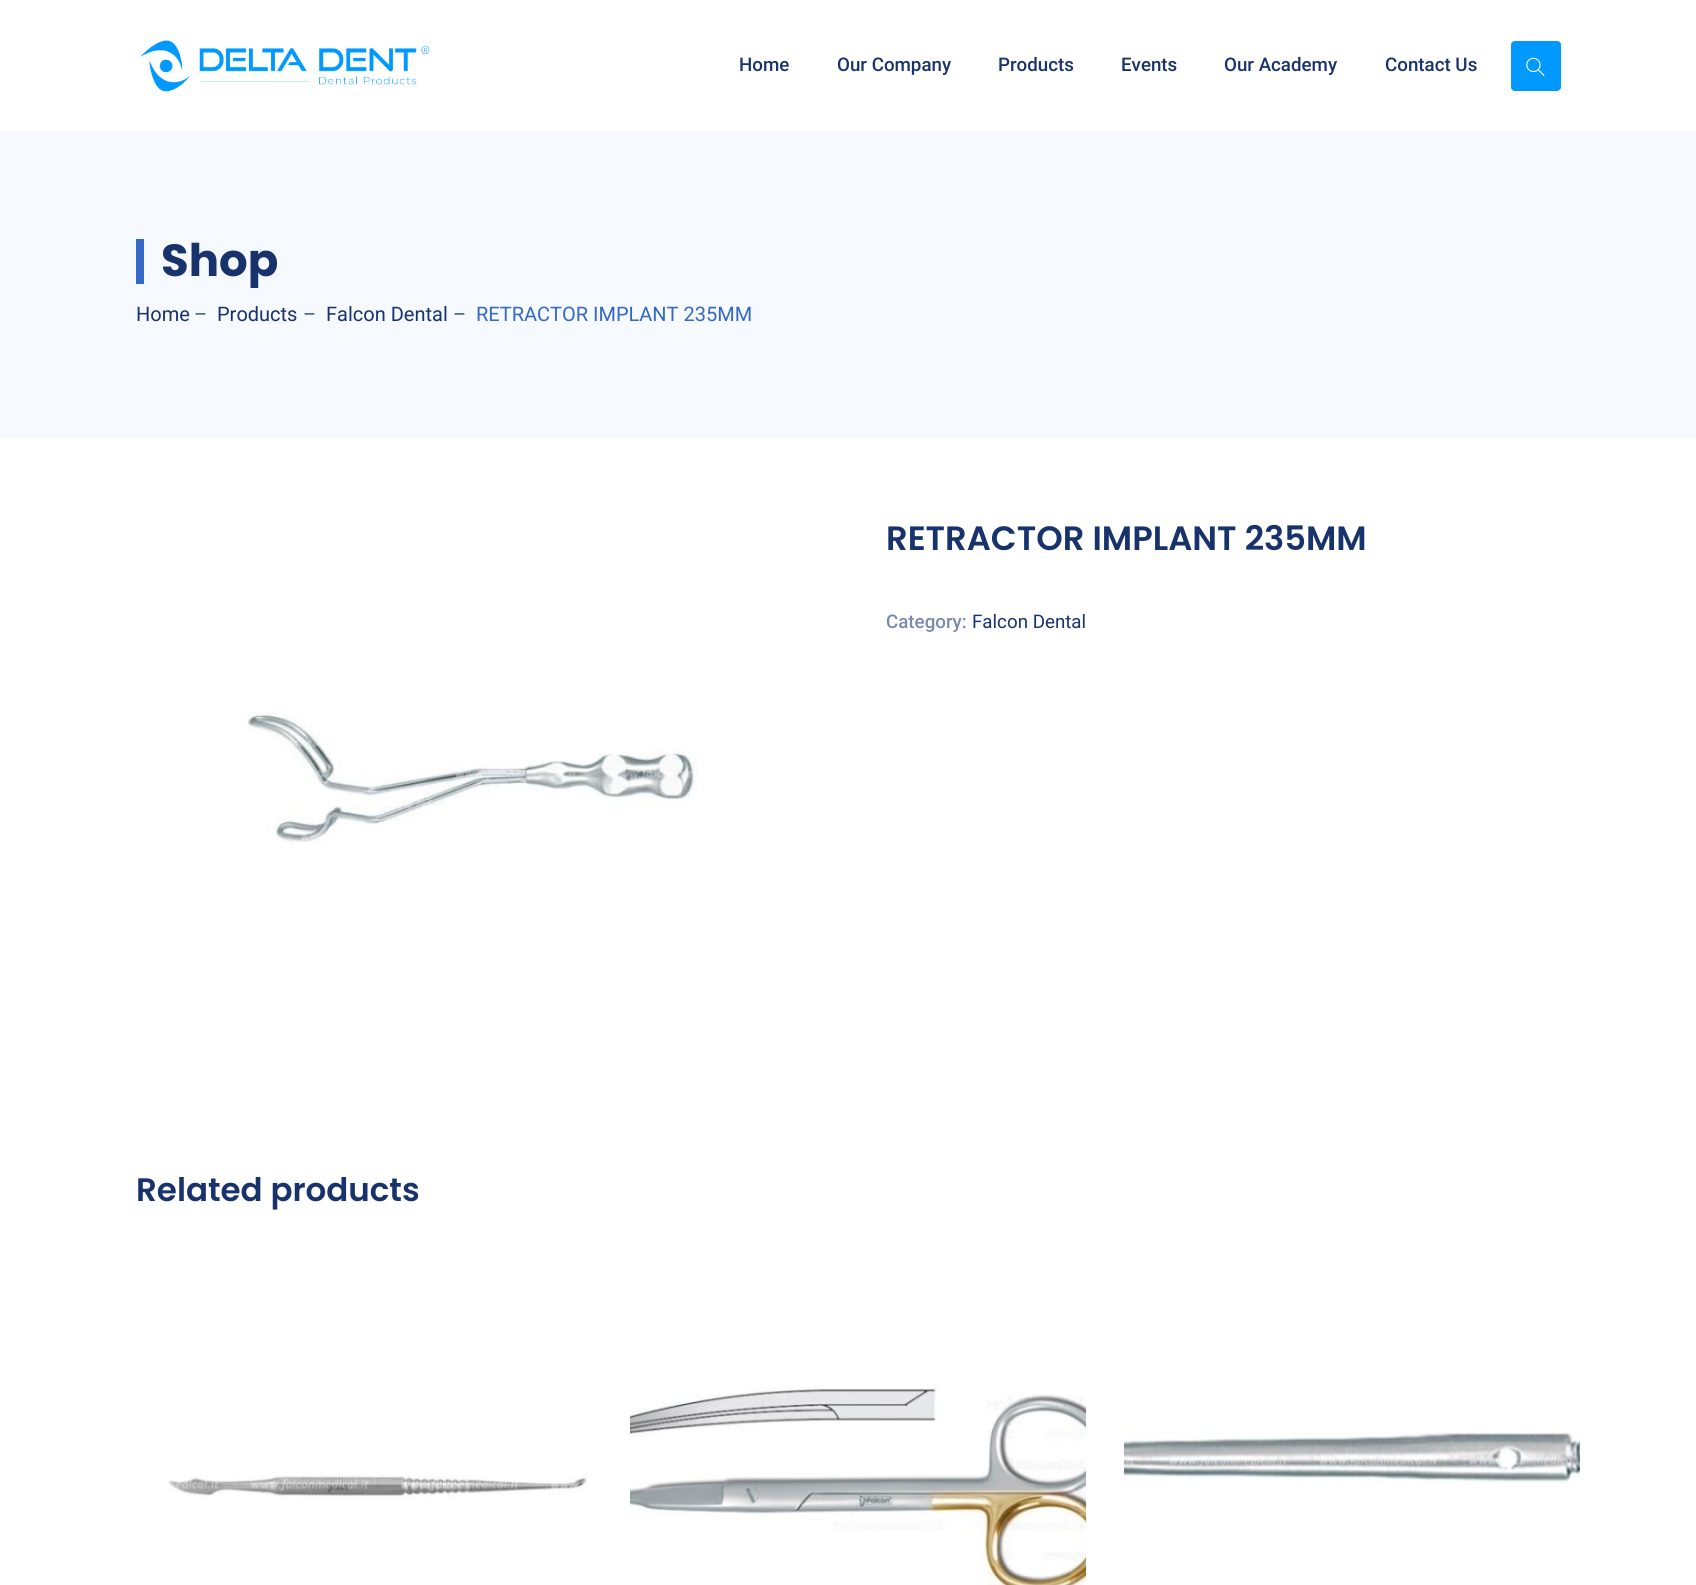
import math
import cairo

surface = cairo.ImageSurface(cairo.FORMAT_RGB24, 1696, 1585)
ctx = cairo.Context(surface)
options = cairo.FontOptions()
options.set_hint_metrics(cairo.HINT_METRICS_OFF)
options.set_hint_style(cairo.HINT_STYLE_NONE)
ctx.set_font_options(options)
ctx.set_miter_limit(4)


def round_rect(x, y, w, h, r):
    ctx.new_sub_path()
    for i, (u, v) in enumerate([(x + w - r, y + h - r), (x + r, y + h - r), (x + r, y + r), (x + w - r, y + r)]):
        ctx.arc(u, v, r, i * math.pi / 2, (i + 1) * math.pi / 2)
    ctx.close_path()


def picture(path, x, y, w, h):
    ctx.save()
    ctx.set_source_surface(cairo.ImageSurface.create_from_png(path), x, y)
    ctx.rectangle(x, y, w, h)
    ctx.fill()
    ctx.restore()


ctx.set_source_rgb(1, 1, 1)
ctx.paint()
picture("img1.png", 140, 40, 290, 52)
ctx.select_font_face("Roboto Medium")
ctx.set_font_size(18.75)
ctx.set_source_rgb(0.094, 0.2, 0.424)
ctx.move_to(739, 71)
ctx.show_text("Home")
ctx.move_to(837, 71)
ctx.show_text("Our Company")
ctx.move_to(998, 71)
ctx.show_text("Products")
ctx.move_to(1121, 71)
ctx.show_text("Events")
ctx.move_to(1224, 71)
ctx.show_text("Our Academy")
ctx.move_to(1385, 71)
ctx.show_text("Contact Us")
ctx.set_source_rgb(0, 0.6, 1)
round_rect(1511.5, 41.5, 49, 49, 3.5)
ctx.fill_preserve()
ctx.set_line_width(1)
ctx.stroke()
picture("img2.png", 1526, 57, 19, 19)
ctx.set_source_rgb(0.961, 0.976, 0.992)
ctx.rectangle(0, 131, 1696, 307)
ctx.fill()
ctx.set_source_rgb(0.2, 0.408, 0.776)
ctx.rectangle(136, 239, 8, 45)
ctx.fill()
ctx.select_font_face("Poppins", cairo.FONT_SLANT_NORMAL, cairo.FONT_WEIGHT_BOLD)
ctx.set_font_size(45)
ctx.set_source_rgb(0.094, 0.2, 0.424)
ctx.move_to(161, 276)
ctx.show_text("Shop")
ctx.select_font_face("Roboto")
ctx.set_font_size(20)
ctx.move_to(136, 321)
ctx.show_text("Home")
ctx.set_source_rgb(0.192, 0.329, 0.486)
ctx.move_to(194, 321)
ctx.show_text("–")
ctx.set_source_rgb(0.094, 0.2, 0.424)
ctx.move_to(217, 321)
ctx.show_text("Products")
ctx.set_source_rgb(0.192, 0.329, 0.486)
ctx.move_to(303, 321)
ctx.show_text("–")
ctx.set_source_rgb(0.094, 0.2, 0.424)
ctx.move_to(326, 321)
ctx.show_text("Falcon Dental")
ctx.set_source_rgb(0.192, 0.329, 0.486)
ctx.move_to(453, 321)
ctx.show_text("–")
ctx.set_source_rgb(0.2, 0.408, 0.776)
ctx.move_to(476, 321)
ctx.show_text("RETRACTOR IMPLANT 235MM")
ctx.select_font_face("Poppins SemiBold")
ctx.set_font_size(33.75)
ctx.set_source_rgb(0.094, 0.2, 0.424)
ctx.move_to(886, 550)
ctx.show_text("RETRACTOR IMPLANT 235MM")
ctx.select_font_face("Roboto Medium")
ctx.set_font_size(18.75)
ctx.set_source_rgb(0.471, 0.541, 0.686)
ctx.move_to(886, 628)
ctx.show_text("Category:")
ctx.select_font_face("Roboto")
ctx.set_source_rgb(0.094, 0.2, 0.424)
ctx.move_to(972, 628)
ctx.show_text("Falcon Dental")
picture("img3.png", 247, 712, 451, 131)
ctx.select_font_face("Poppins SemiBold")
ctx.set_font_size(32.5)
ctx.move_to(136, 1201)
ctx.show_text("Related products")
picture("img4.png", 630, 1386, 457, 199)
picture("img5.png", 1123, 1430, 457, 54)
picture("img6.png", 167, 1475, 420, 25)
surface.write_to_png("page.png")
